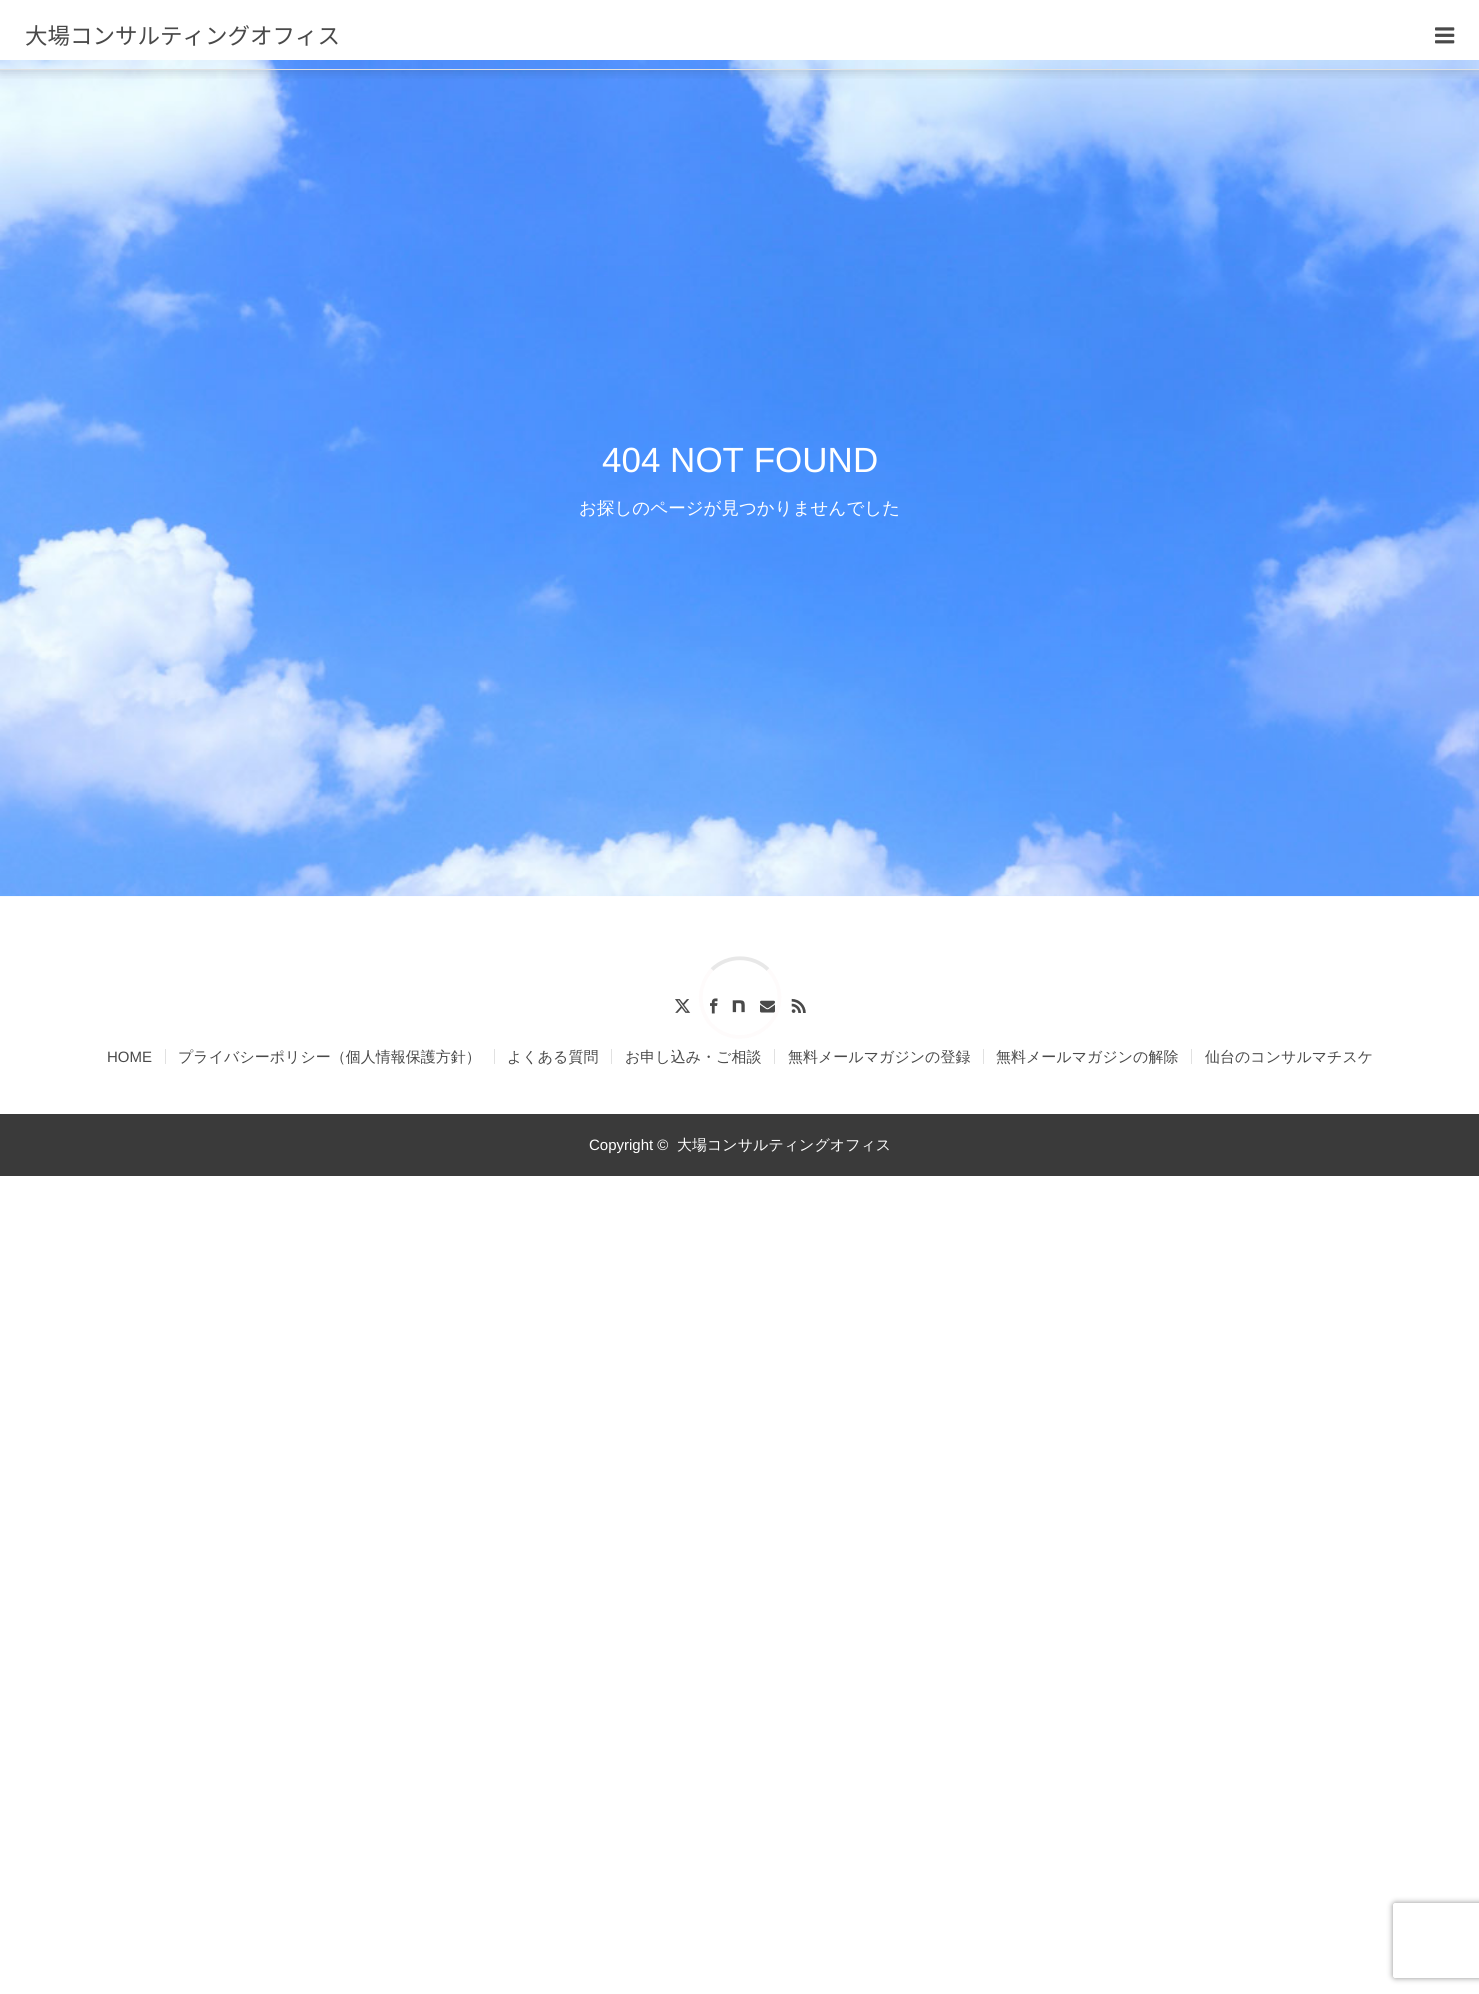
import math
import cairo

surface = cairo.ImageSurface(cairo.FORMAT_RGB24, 1479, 1994)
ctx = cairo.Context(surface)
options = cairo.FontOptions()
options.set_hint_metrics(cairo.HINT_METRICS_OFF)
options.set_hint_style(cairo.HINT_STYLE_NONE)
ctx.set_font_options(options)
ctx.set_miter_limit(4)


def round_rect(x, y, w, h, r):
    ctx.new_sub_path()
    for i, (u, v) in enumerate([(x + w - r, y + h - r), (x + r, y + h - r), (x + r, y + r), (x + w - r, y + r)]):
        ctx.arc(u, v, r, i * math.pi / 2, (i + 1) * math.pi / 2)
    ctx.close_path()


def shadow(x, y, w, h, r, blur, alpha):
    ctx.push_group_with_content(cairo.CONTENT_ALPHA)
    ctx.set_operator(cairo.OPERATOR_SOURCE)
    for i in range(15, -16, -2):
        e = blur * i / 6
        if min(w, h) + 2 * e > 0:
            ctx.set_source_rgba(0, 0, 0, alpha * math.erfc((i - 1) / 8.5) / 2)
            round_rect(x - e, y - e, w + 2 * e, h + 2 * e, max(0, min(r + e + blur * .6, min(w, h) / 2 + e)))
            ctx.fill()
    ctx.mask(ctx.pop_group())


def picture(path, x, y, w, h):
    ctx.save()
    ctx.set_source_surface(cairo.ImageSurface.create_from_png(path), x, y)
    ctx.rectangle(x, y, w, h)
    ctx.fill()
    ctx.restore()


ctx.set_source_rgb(1, 1, 1)
ctx.paint()
picture("img2.png", 0, 60, 1479, 837)
ctx.save()
ctx.rectangle(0, 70, 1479, 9)
ctx.clip()
ctx.set_source_rgb(0.11, 0.11, 0.11)
shadow(-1, -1, 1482, 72, 0, 6, 0.2)
ctx.restore()
ctx.set_source_rgb(0.882, 0.882, 0.882)
ctx.rectangle(0, 69, 1479, 1)
ctx.fill()
ctx.select_font_face("Noto Sans JP")
ctx.set_font_size(22.5)
ctx.set_source_rgb(0.286, 0.286, 0.286)
ctx.move_to(25, 44)
ctx.show_text("大場コンサルティングオフィス")
picture("img1.png", 1435, 27, 20, 17)
ctx.select_font_face("Liberation Sans")
ctx.set_font_size(35)
ctx.set_source_rgb(1, 1, 1)
ctx.move_to(602, 472)
ctx.show_text("404 NOT FOUND")
ctx.select_font_face("WenQuanYi Zen Hei Medium")
ctx.set_font_size(17.5)
ctx.move_to(579, 514)
ctx.show_text("お探しのページが見つかりませんでした")
picture("img3.png", 675, 999, 16, 14)
picture("img4.png", 710, 998, 8, 16)
picture("img5.png", 732, 1000, 13, 13)
picture("img6.png", 760, 1000, 15, 13)
picture("img7.png", 791, 998, 15, 15)
ctx.set_source_rgb(0.882, 0.882, 0.882)
ctx.rectangle(165, 1049, 1, 15)
ctx.fill()
ctx.select_font_face("Liberation Sans")
ctx.set_font_size(15)
ctx.set_source_rgb(0.286, 0.286, 0.286)
ctx.move_to(107, 1062)
ctx.show_text("HOME")
ctx.set_source_rgb(0.882, 0.882, 0.882)
ctx.rectangle(494, 1049, 1, 15)
ctx.fill()
ctx.select_font_face("WenQuanYi Zen Hei Medium")
ctx.set_source_rgb(0.286, 0.286, 0.286)
ctx.move_to(178, 1062)
ctx.show_text("プライバシーポリシー（個人情報保護方針）")
ctx.set_source_rgb(0.882, 0.882, 0.882)
ctx.rectangle(611, 1049, 1, 15)
ctx.fill()
ctx.set_source_rgb(0.286, 0.286, 0.286)
ctx.move_to(507, 1062)
ctx.show_text("よくある質問")
ctx.set_source_rgb(0.882, 0.882, 0.882)
ctx.rectangle(774, 1049, 1, 15)
ctx.fill()
ctx.set_source_rgb(0.286, 0.286, 0.286)
ctx.move_to(625, 1062)
ctx.show_text("お申し込み・ご相談")
ctx.set_source_rgb(0.882, 0.882, 0.882)
ctx.rectangle(983, 1049, 1, 15)
ctx.fill()
ctx.set_source_rgb(0.286, 0.286, 0.286)
ctx.move_to(788, 1062)
ctx.show_text("無料メールマガジンの登録")
ctx.set_source_rgb(0.882, 0.882, 0.882)
ctx.rectangle(1191, 1049, 1, 15)
ctx.fill()
ctx.set_source_rgb(0.286, 0.286, 0.286)
ctx.move_to(996, 1062)
ctx.show_text("無料メールマガジンの解除")
ctx.move_to(1205, 1062)
ctx.show_text("仙台のコンサルマチスケ")
ctx.set_source_rgb(0.227, 0.227, 0.227)
ctx.rectangle(0, 1114, 1479, 62)
ctx.fill()
ctx.select_font_face("Liberation Sans")
ctx.set_source_rgb(1, 1, 1)
ctx.move_to(589, 1150)
ctx.show_text("Copyright ©")
ctx.select_font_face("WenQuanYi Zen Hei Medium")
ctx.move_to(677, 1150)
ctx.show_text("大場コンサルティングオフィス")
ctx.new_path()
ctx.move_to(712, 969.5)
ctx.curve_to(727.5, 954.5, 752.5, 954.5, 768, 969.5)
ctx.set_source_rgb(0.91, 0.91, 0.91)
ctx.set_line_width(3.8)
ctx.stroke()
ctx.new_path()
ctx.move_to(768, 969.5)
ctx.curve_to(775, 977, 779.5, 987, 779.5, 997.5)
ctx.curve_to(779.5, 1032.5, 737, 1050, 712, 1025.5)
ctx.curve_to(706.5, 1020, 703, 1013, 701.5, 1005)
ctx.curve_to(699, 992.5, 703, 979, 712, 969.5)
ctx.set_source_rgba(0.992, 0.929, 0.937, 0.2)
ctx.stroke()
ctx.save()
ctx.set_fill_rule(cairo.FILL_RULE_EVEN_ODD)
ctx.new_path()
ctx.move_to(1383, 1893)
ctx.line_to(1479, 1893)
ctx.line_to(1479, 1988)
ctx.line_to(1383, 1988)
ctx.close_path()
ctx.move_to(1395.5, 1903)
ctx.line_to(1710.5, 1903)
ctx.curve_to(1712, 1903, 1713, 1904, 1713, 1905.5)
ctx.line_to(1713, 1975.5)
ctx.curve_to(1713, 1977, 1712, 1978, 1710.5, 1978)
ctx.line_to(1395.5, 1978)
ctx.curve_to(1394, 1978, 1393, 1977, 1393, 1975.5)
ctx.line_to(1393, 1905.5)
ctx.curve_to(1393, 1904, 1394, 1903, 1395.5, 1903)
ctx.close_path()
ctx.clip()
ctx.set_source_rgb(0.557, 0.557, 0.557)
shadow(1393, 1903, 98, 75, 2.5, 3, 1)
ctx.restore()
surface.write_to_png("page.png")
